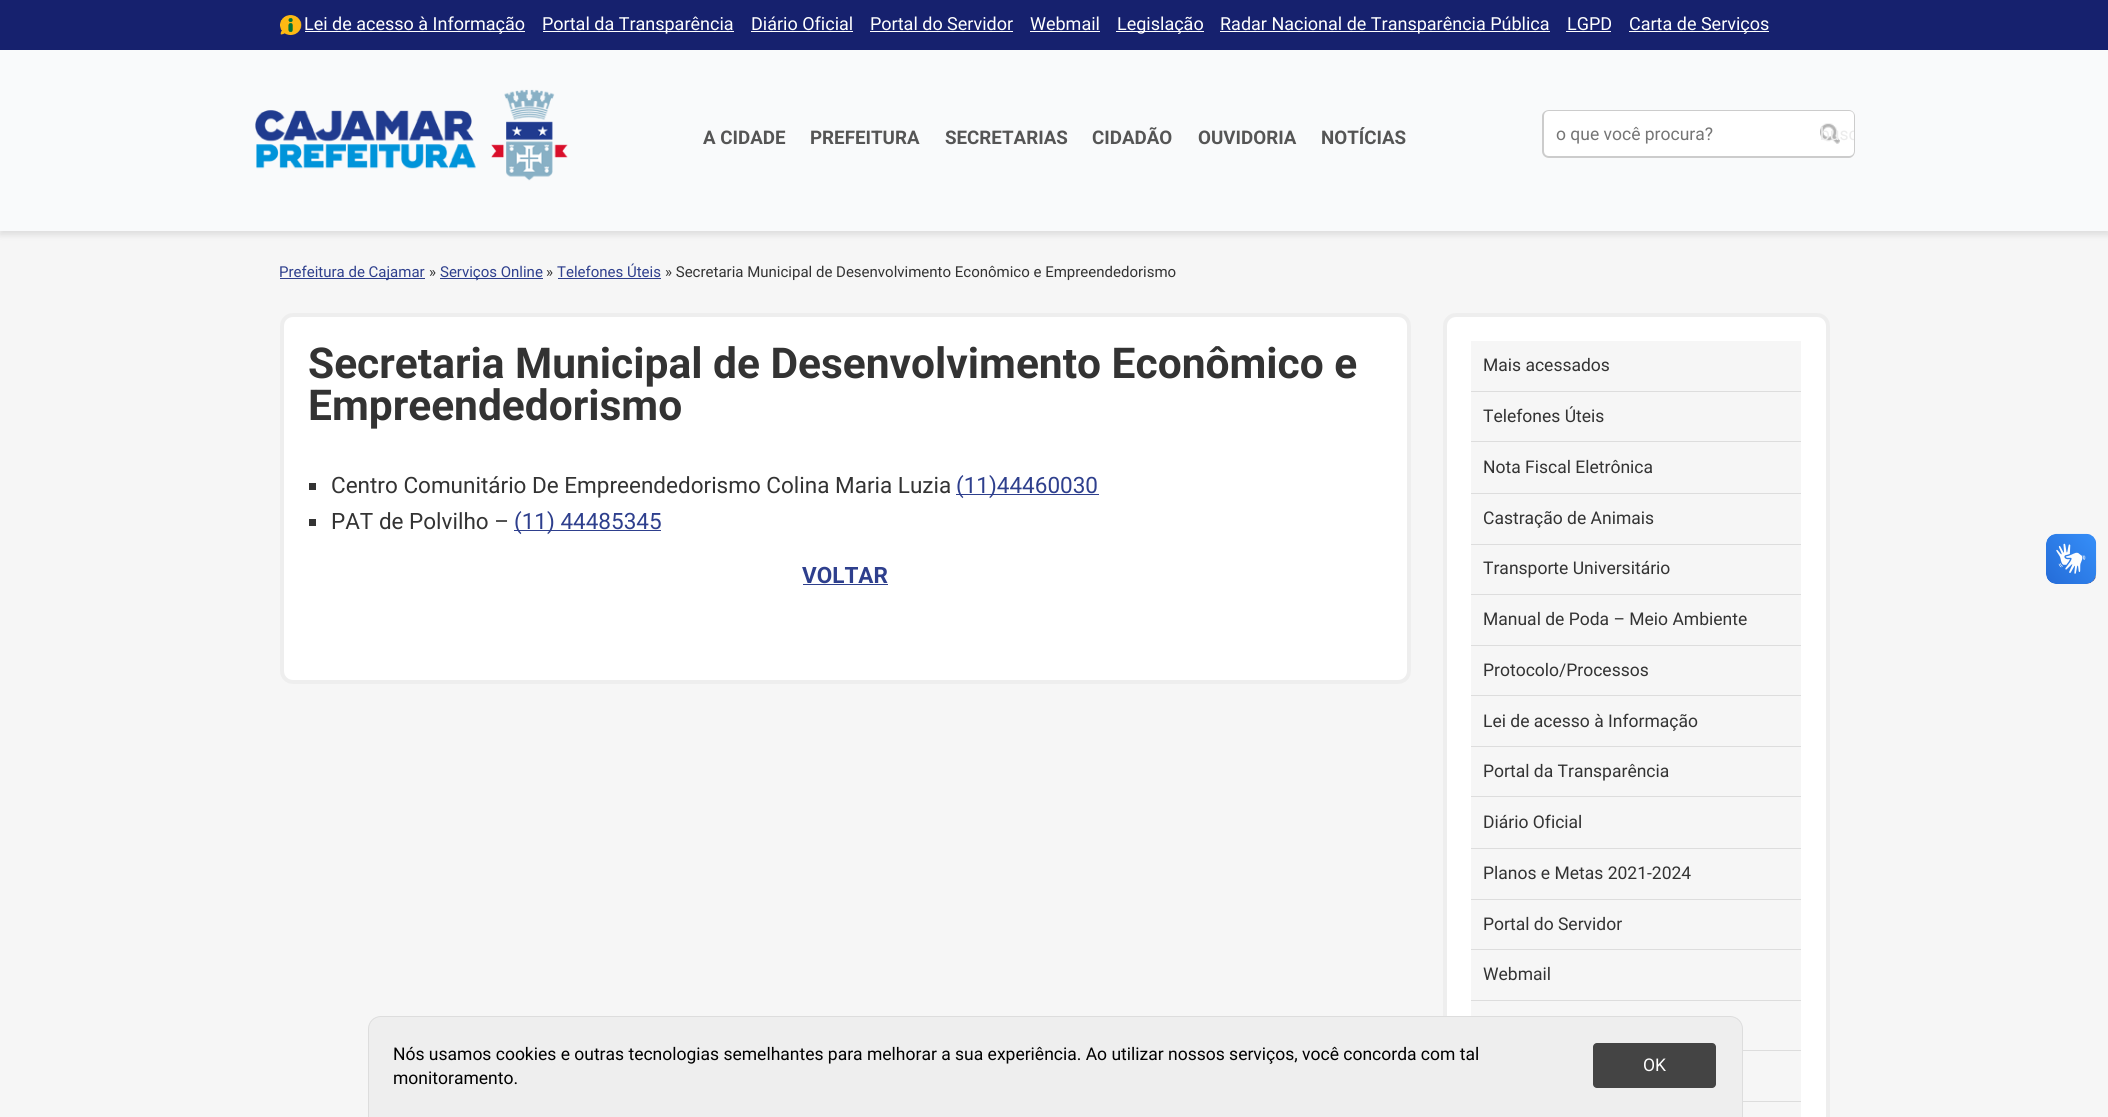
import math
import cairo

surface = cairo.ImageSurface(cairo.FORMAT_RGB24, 2108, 1117)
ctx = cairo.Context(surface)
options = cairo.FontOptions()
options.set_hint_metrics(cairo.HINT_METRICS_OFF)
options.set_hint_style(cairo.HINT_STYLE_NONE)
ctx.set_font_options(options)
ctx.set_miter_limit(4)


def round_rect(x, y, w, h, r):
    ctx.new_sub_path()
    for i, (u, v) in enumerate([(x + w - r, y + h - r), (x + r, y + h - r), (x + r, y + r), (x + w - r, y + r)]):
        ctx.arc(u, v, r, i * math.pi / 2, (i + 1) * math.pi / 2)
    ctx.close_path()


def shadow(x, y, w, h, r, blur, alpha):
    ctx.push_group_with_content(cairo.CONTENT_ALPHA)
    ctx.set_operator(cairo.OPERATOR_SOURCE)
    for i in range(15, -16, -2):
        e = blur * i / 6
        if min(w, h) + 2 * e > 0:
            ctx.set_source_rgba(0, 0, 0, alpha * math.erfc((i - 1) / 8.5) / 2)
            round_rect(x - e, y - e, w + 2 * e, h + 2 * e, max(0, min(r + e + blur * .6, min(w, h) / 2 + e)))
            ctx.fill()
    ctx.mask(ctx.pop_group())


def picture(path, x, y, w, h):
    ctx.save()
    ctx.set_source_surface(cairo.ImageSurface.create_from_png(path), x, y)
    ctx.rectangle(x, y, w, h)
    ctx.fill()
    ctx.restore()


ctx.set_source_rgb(0.961, 0.961, 0.961)
ctx.paint()
ctx.set_source_rgb(0, 0, 0)
shadow(0, 54, 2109, 181, 0, 3, 0.1)
ctx.set_source_rgb(0.086, 0.129, 0.431)
ctx.rectangle(0, 0, 2108, 50)
ctx.fill()
picture("img1.png", 280, 15, 22, 20)
ctx.set_source_rgb(1, 1, 1)
ctx.rectangle(305, 31, 220, 1)
ctx.fill()
ctx.select_font_face("Roboto")
ctx.set_font_size(18)
ctx.move_to(304, 30)
ctx.show_text("Lei de acesso à Informação")
ctx.rectangle(543, 31, 191, 1)
ctx.fill()
ctx.move_to(542, 30)
ctx.show_text("Portal da Transparência")
ctx.move_to(751, 30)
ctx.show_text("Diário Oficial")
ctx.rectangle(751, 31, 102, 1)
ctx.fill()
ctx.move_to(870, 30)
ctx.show_text("Portal do Servidor")
ctx.rectangle(870, 31, 143, 1)
ctx.fill()
ctx.move_to(1030, 30)
ctx.show_text("Webmail")
ctx.rectangle(1030, 31, 70, 1)
ctx.fill()
ctx.rectangle(1116, 31, 88, 1)
ctx.fill()
ctx.move_to(1117, 30)
ctx.show_text("Legislação")
ctx.rectangle(1220, 31, 330, 1)
ctx.fill()
ctx.move_to(1220, 30)
ctx.show_text("Radar Nacional de Transparência Pública")
ctx.move_to(1567, 30)
ctx.show_text("LGPD")
ctx.rectangle(1566, 31, 45, 1)
ctx.fill()
ctx.rectangle(1629, 31, 140, 1)
ctx.fill()
ctx.move_to(1629, 30)
ctx.show_text("Carta de Serviços")
ctx.set_source_rgb(0.973, 0.98, 0.984)
ctx.rectangle(0, 50, 2108, 181)
ctx.fill()
picture("img2.png", 255, 89, 313, 92)
ctx.select_font_face("Roboto", cairo.FONT_SLANT_NORMAL, cairo.FONT_WEIGHT_BOLD)
ctx.set_font_size(18.75)
ctx.set_source_rgb(0.333, 0.333, 0.333)
ctx.move_to(703, 144)
ctx.show_text("A CIDADE")
ctx.move_to(810, 144)
ctx.show_text("PREFEITURA")
ctx.move_to(945, 144)
ctx.show_text("SECRETARIAS")
ctx.move_to(1092, 144)
ctx.show_text("CIDADÃO")
ctx.move_to(1198, 144)
ctx.show_text("OUVIDORIA")
ctx.move_to(1321, 144)
ctx.show_text("NOTÍCIAS")
ctx.set_source_rgb(1, 1, 1)
ctx.new_path()
ctx.move_to(1549, 110)
ctx.line_to(1808, 110)
ctx.line_to(1808, 158)
ctx.line_to(1549, 158)
ctx.curve_to(1545.5, 158, 1543, 155.5, 1543, 152)
ctx.line_to(1543, 116)
ctx.curve_to(1543, 112.5, 1545.5, 110, 1549, 110)
ctx.close_path()
ctx.fill()
ctx.set_source_rgb(0.8, 0.8, 0.8)
ctx.set_fill_rule(cairo.FILL_RULE_EVEN_ODD)
ctx.new_path()
ctx.move_to(1549, 110)
ctx.line_to(1808, 110)
ctx.line_to(1808, 158)
ctx.line_to(1549, 158)
ctx.curve_to(1545, 158, 1542, 155, 1542, 151)
ctx.line_to(1542, 116)
ctx.curve_to(1542, 113, 1545, 110, 1549, 110)
ctx.close_path()
ctx.move_to(1549, 111)
ctx.line_to(1808, 111)
ctx.line_to(1808, 156)
ctx.line_to(1549, 156)
ctx.curve_to(1546, 156, 1544, 154, 1544, 151)
ctx.line_to(1544, 116)
ctx.curve_to(1544, 113, 1546, 111, 1549, 111)
ctx.close_path()
ctx.fill()
ctx.select_font_face("Roboto")
ctx.set_font_size(17.5)
ctx.set_source_rgb(0.459, 0.459, 0.459)
ctx.move_to(1556, 140)
ctx.show_text("o que você procura?")
ctx.set_source_rgb(1, 1, 1)
ctx.new_path()
ctx.move_to(1808, 110)
ctx.line_to(1849, 110)
ctx.curve_to(1852.5, 110, 1855, 112.5, 1855, 116)
ctx.line_to(1855, 152)
ctx.curve_to(1855, 155.5, 1852.5, 158, 1849, 158)
ctx.line_to(1808, 158)
ctx.close_path()
ctx.fill()
picture("img3.png", 1820, 123, 20, 21)
ctx.set_source_rgb(0.8, 0.8, 0.8)
ctx.new_path()
ctx.move_to(1808, 110)
ctx.line_to(1849, 110)
ctx.curve_to(1852, 110, 1855, 113, 1855, 116)
ctx.line_to(1855, 151)
ctx.curve_to(1855, 155, 1852, 158, 1849, 158)
ctx.line_to(1808, 158)
ctx.close_path()
ctx.move_to(1808, 111)
ctx.line_to(1849, 111)
ctx.curve_to(1852, 111, 1854, 113, 1854, 116)
ctx.line_to(1854, 151)
ctx.curve_to(1854, 154, 1852, 156, 1849, 156)
ctx.line_to(1808, 156)
ctx.close_path()
ctx.fill()
ctx.save()
ctx.set_fill_rule(cairo.FILL_RULE_WINDING)
ctx.new_path()
ctx.move_to(1808, 111)
ctx.line_to(1849, 111)
ctx.curve_to(1852, 111, 1854, 113, 1854, 116)
ctx.line_to(1854, 151)
ctx.curve_to(1854, 154, 1852, 156, 1849, 156)
ctx.line_to(1808, 156)
ctx.close_path()
ctx.clip()
ctx.set_source_rgb(0.922, 0.922, 0.922)
ctx.move_to(1820, 140)
ctx.show_text("busc")
ctx.restore()
ctx.set_source_rgb(0.18, 0.247, 0.553)
ctx.rectangle(280, 278, 145, 1)
ctx.fill()
ctx.set_font_size(15)
ctx.move_to(279, 277)
ctx.show_text("Prefeitura de Cajamar")
ctx.set_source_rgb(0.2, 0.2, 0.2)
ctx.move_to(429, 277)
ctx.show_text("»")
ctx.set_source_rgb(0.18, 0.247, 0.553)
ctx.rectangle(440, 278, 103, 1)
ctx.fill()
ctx.move_to(440, 277)
ctx.show_text("Serviços Online")
ctx.set_source_rgb(0.2, 0.2, 0.2)
ctx.move_to(546, 277)
ctx.show_text("»")
ctx.set_source_rgb(0.18, 0.247, 0.553)
ctx.move_to(557, 277)
ctx.show_text("Telefones Úteis")
ctx.rectangle(558, 278, 103, 1)
ctx.fill()
ctx.set_source_rgb(0.2, 0.2, 0.2)
ctx.move_to(665, 277)
ctx.show_text("» Secretaria Municipal de Desenvolvimento Econômico e Empreendedorismo")
ctx.set_source_rgb(1, 1, 1)
round_rect(282, 315, 1127, 367, 11)
ctx.fill_preserve()
ctx.set_source_rgb(0.933, 0.933, 0.933)
ctx.set_line_width(4)
ctx.stroke()
ctx.select_font_face("Roboto", cairo.FONT_SLANT_NORMAL, cairo.FONT_WEIGHT_BOLD)
ctx.set_font_size(42.5)
ctx.set_source_rgb(0.2, 0.2, 0.2)
ctx.move_to(308, 378)
ctx.show_text("Secretaria Municipal de Desenvolvimento Econômico e")
ctx.move_to(308, 420)
ctx.show_text("Empreendedorismo")
ctx.rectangle(309, 483, 7, 7)
ctx.fill()
ctx.select_font_face("Roboto")
ctx.set_font_size(22.5)
ctx.move_to(331, 493)
ctx.show_text("Centro Comunitário De Empreendedorismo Colina Maria Luzia")
ctx.set_source_rgb(0.18, 0.247, 0.553)
ctx.rectangle(956, 494, 143, 1)
ctx.fill()
ctx.move_to(956, 493)
ctx.show_text("(11)44460030")
ctx.set_source_rgb(0.2, 0.2, 0.2)
ctx.rectangle(309, 519, 7, 7)
ctx.fill()
ctx.move_to(331, 529)
ctx.show_text("PAT de Polvilho –")
ctx.set_source_rgb(0.18, 0.247, 0.553)
ctx.rectangle(514, 530, 147, 1)
ctx.fill()
ctx.move_to(514, 529)
ctx.show_text("(11) 44485345")
ctx.select_font_face("Roboto", cairo.FONT_SLANT_NORMAL, cairo.FONT_WEIGHT_BOLD)
ctx.move_to(802, 583)
ctx.show_text("VOLTAR")
ctx.rectangle(803, 584, 85, 1)
ctx.fill()
ctx.set_source_rgb(1, 1, 1)
round_rect(1445, 315, 383, 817, 11)
ctx.fill_preserve()
ctx.set_source_rgb(0.933, 0.933, 0.933)
ctx.stroke()
ctx.set_source_rgb(0.961, 0.961, 0.961)
ctx.rectangle(1471, 341, 330, 776)
ctx.fill()
ctx.set_source_rgb(0.867, 0.867, 0.867)
ctx.rectangle(1471, 391, 330, 1)
ctx.fill()
ctx.select_font_face("Roboto")
ctx.set_font_size(17.5)
ctx.set_source_rgb(0.2, 0.2, 0.2)
ctx.move_to(1483, 371)
ctx.show_text("Mais acessados")
ctx.set_source_rgb(0.867, 0.867, 0.867)
ctx.rectangle(1471, 441, 330, 1)
ctx.fill()
ctx.set_source_rgb(0.2, 0.2, 0.2)
ctx.move_to(1483, 422)
ctx.show_text("Telefones Úteis")
ctx.set_source_rgb(0.867, 0.867, 0.867)
ctx.rectangle(1471, 493, 330, 1)
ctx.fill()
ctx.set_source_rgb(0.2, 0.2, 0.2)
ctx.move_to(1483, 473)
ctx.show_text("Nota Fiscal Eletrônica")
ctx.set_source_rgb(0.867, 0.867, 0.867)
ctx.rectangle(1471, 544, 330, 1)
ctx.fill()
ctx.set_source_rgb(0.2, 0.2, 0.2)
ctx.move_to(1483, 524)
ctx.show_text("Castração de Animais")
ctx.set_source_rgb(0.867, 0.867, 0.867)
ctx.rectangle(1471, 594, 330, 1)
ctx.fill()
ctx.set_source_rgb(0.2, 0.2, 0.2)
ctx.move_to(1483, 574)
ctx.show_text("Transporte Universitário")
ctx.set_source_rgb(0.867, 0.867, 0.867)
ctx.rectangle(1471, 645, 330, 1)
ctx.fill()
ctx.set_source_rgb(0.2, 0.2, 0.2)
ctx.move_to(1483, 625)
ctx.show_text("Manual de Poda – Meio Ambiente")
ctx.set_source_rgb(0.867, 0.867, 0.867)
ctx.rectangle(1471, 695, 330, 1)
ctx.fill()
ctx.set_source_rgb(0.2, 0.2, 0.2)
ctx.move_to(1483, 676)
ctx.show_text("Protocolo/Processos")
ctx.set_source_rgb(0.867, 0.867, 0.867)
ctx.rectangle(1471, 746, 330, 1)
ctx.fill()
ctx.set_source_rgb(0.2, 0.2, 0.2)
ctx.move_to(1483, 727)
ctx.show_text("Lei de acesso à Informação")
ctx.set_source_rgb(0.867, 0.867, 0.867)
ctx.rectangle(1471, 796, 330, 1)
ctx.fill()
ctx.set_source_rgb(0.2, 0.2, 0.2)
ctx.move_to(1483, 777)
ctx.show_text("Portal da Transparência")
ctx.set_source_rgb(0.867, 0.867, 0.867)
ctx.rectangle(1471, 848, 330, 1)
ctx.fill()
ctx.set_source_rgb(0.2, 0.2, 0.2)
ctx.move_to(1483, 828)
ctx.show_text("Diário Oficial")
ctx.set_source_rgb(0.867, 0.867, 0.867)
ctx.rectangle(1471, 899, 330, 1)
ctx.fill()
ctx.set_source_rgb(0.2, 0.2, 0.2)
ctx.move_to(1483, 879)
ctx.show_text("Planos e Metas 2021-2024")
ctx.set_source_rgb(0.867, 0.867, 0.867)
ctx.rectangle(1471, 949, 330, 1)
ctx.fill()
ctx.set_source_rgb(0.2, 0.2, 0.2)
ctx.move_to(1483, 930)
ctx.show_text("Portal do Servidor")
ctx.set_source_rgb(0.867, 0.867, 0.867)
ctx.rectangle(1471, 1000, 330, 1)
ctx.fill()
ctx.set_source_rgb(0.2, 0.2, 0.2)
ctx.move_to(1483, 980)
ctx.show_text("Webmail")
ctx.set_source_rgb(0.867, 0.867, 0.867)
ctx.rectangle(1743, 1050, 58, 1)
ctx.fill()
ctx.rectangle(1743, 1101, 58, 1)
ctx.fill()
picture("img4.png", 2046, 533, 51, 51)
picture("img5.png", 2046, 534, 50, 50)
ctx.set_source_rgb(0.933, 0.933, 0.933)
ctx.new_path()
ctx.move_to(381, 1016.5)
ctx.line_to(1730, 1016.5)
ctx.curve_to(1737, 1016.5, 1742.5, 1022, 1742.5, 1029)
ctx.line_to(1742.5, 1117.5)
ctx.line_to(368.5, 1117.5)
ctx.line_to(368.5, 1029)
ctx.curve_to(368.5, 1022, 374, 1016.5, 381, 1016.5)
ctx.close_path()
ctx.fill_preserve()
ctx.set_source_rgb(0.867, 0.867, 0.867)
ctx.set_line_width(1)
ctx.stroke()
ctx.set_source_rgb(0, 0, 0)
ctx.move_to(393, 1060)
ctx.show_text("Nós usamos cookies e outras tecnologias semelhantes para melhorar a sua experiência. Ao utilizar nossos serviços, você concorda com tal")
ctx.move_to(393, 1084)
ctx.show_text("monitoramento.")
ctx.set_source_rgb(0.267, 0.267, 0.267)
round_rect(1593, 1043, 123, 45, 4)
ctx.fill()
ctx.set_source_rgb(1, 1, 1)
ctx.move_to(1643, 1071)
ctx.show_text("OK")
surface.write_to_png("page.png")
